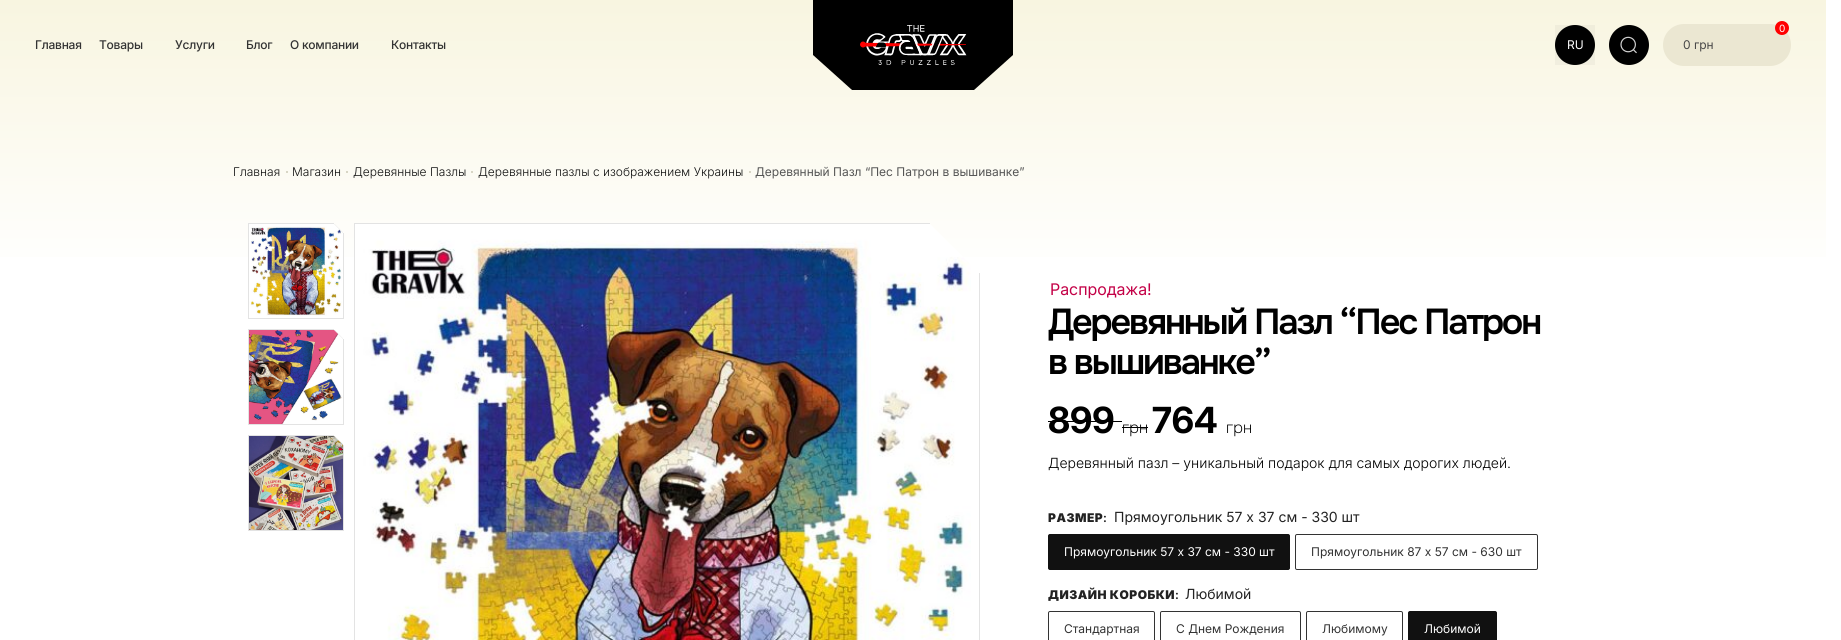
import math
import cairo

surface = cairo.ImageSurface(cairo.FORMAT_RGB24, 1841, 640)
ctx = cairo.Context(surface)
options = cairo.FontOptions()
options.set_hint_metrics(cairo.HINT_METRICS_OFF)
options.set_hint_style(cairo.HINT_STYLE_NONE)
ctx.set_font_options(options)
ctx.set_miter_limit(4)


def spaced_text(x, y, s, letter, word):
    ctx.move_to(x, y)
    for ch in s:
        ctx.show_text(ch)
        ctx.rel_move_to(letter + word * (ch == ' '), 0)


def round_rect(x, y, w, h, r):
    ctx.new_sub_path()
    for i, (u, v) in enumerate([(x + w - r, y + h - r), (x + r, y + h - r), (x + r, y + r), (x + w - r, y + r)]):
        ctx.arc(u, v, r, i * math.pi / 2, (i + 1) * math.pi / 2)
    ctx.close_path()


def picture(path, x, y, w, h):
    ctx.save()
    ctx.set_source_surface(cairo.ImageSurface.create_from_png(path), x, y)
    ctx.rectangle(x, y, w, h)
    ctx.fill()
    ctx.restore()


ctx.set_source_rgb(1, 1, 1)
ctx.paint()
gradient = cairo.LinearGradient(913, 0, 913, 280)
gradient.add_color_stop_rgba(0, 0.973, 0.961, 0.878, 1)
gradient.add_color_stop_rgba(1, 1, 1, 1, 1)
ctx.set_source(gradient)
ctx.rectangle(0, 0, 1826, 257)
ctx.fill()
ctx.select_font_face("Inter Medium")
ctx.set_font_size(12)
ctx.set_source_rgb(0.2, 0.2, 0.2)
spaced_text(35, 49, "Главная", -0.25, 0)
spaced_text(99, 49, "Товары", -0.25, 0)
spaced_text(175, 49, "Услуги", -0.25, 0)
spaced_text(246, 49, "Блог", -0.25, 0)
spaced_text(290, 49, "О компании", -0.25, 0)
spaced_text(391, 49, "Контакты", -0.25, 0)
ctx.set_source_rgb(0, 0, 0)
ctx.new_path()
ctx.move_to(813, 55)
ctx.line_to(852, 90)
ctx.line_to(963, 90)
ctx.line_to(963, 0)
ctx.line_to(813, 0)
ctx.close_path()
ctx.fill()
ctx.new_path()
ctx.move_to(1013, 55)
ctx.line_to(974, 90)
ctx.line_to(864, 90)
ctx.line_to(864, 0)
ctx.line_to(1013, 0)
ctx.close_path()
ctx.fill()
picture("img1.png", 860, 25, 107, 40)
gradient = cairo.LinearGradient(913, 0, 913, 280)
gradient.add_color_stop_rgba(0, 0.937, 0.925, 0.847, 1)
gradient.add_color_stop_rgba(1, 0.965, 0.965, 0.965, 1)
ctx.set_source(gradient)
ctx.rectangle(1555, 25, 40, 40)
ctx.fill()
ctx.set_source_rgb(0.004, 0.004, 0.004)
ctx.arc(1575, 45, 20, 0, 2 * math.pi)
ctx.fill()
ctx.select_font_face("Inter")
ctx.set_source_rgb(1, 1, 1)
ctx.move_to(1567, 49)
ctx.show_text("RU")
ctx.set_source_rgb(0, 0, 0)
ctx.new_path()
ctx.arc(1629, 45, 20, 0, 2 * math.pi)
ctx.fill()
picture("img2.png", 1620, 36, 17, 18)
ctx.set_source_rgb(0.918, 0.906, 0.824)
round_rect(1663, 24, 128, 42, 21)
ctx.fill()
ctx.set_source_rgb(1, 0, 0)
ctx.arc(1782, 28, 7, 0, 2 * math.pi)
ctx.fill()
ctx.set_font_size(10)
ctx.set_source_rgb(1, 1, 1)
spaced_text(1779, 32, "0", -1, 0)
ctx.set_font_size(12)
ctx.set_source_rgb(0.282, 0.282, 0.282)
ctx.move_to(1683, 49)
ctx.show_text("0 грн")
ctx.select_font_face("Inter Light")
ctx.set_source_rgb(0.067, 0.067, 0.067)
ctx.move_to(233, 176)
ctx.show_text("Главная")
ctx.set_source_rgb(0.8, 0.788, 0.714)
ctx.new_path()
ctx.arc(287, 172, 1, 0, 2 * math.pi)
ctx.fill()
ctx.set_source_rgb(0.067, 0.067, 0.067)
ctx.move_to(292, 176)
ctx.show_text("Магазин")
ctx.set_source_rgb(0.8, 0.788, 0.714)
ctx.new_path()
ctx.arc(347, 172, 1, 0, 2 * math.pi)
ctx.fill()
ctx.set_source_rgb(0.067, 0.067, 0.067)
ctx.move_to(353, 176)
ctx.show_text("Деревянные Пазлы")
ctx.set_source_rgb(0.8, 0.788, 0.714)
ctx.new_path()
ctx.arc(472, 172, 1, 0, 2 * math.pi)
ctx.fill()
ctx.set_source_rgb(0.067, 0.067, 0.067)
ctx.move_to(478, 176)
ctx.show_text("Деревянные пазлы с изображением Украины")
ctx.set_source_rgb(0.8, 0.788, 0.714)
ctx.new_path()
ctx.arc(750, 172, 1, 0, 2 * math.pi)
ctx.fill()
ctx.select_font_face("Inter")
ctx.set_source_rgb(0.333, 0.333, 0.333)
ctx.move_to(755, 176)
ctx.show_text("Деревянный Пазл “Пес Патрон в вышиванке”")
ctx.set_source_rgb(0.89, 0.89, 0.89)
ctx.new_path()
ctx.move_to(249, 224)
ctx.line_to(334, 224)
ctx.line_to(334, 223)
ctx.line_to(248, 223)
ctx.line_to(248, 319)
ctx.line_to(344, 319)
ctx.line_to(344, 233)
ctx.line_to(343, 233)
ctx.line_to(343, 318)
ctx.line_to(249, 318)
ctx.close_path()
ctx.fill()
picture("img3.png", 249, 224, 94, 92)
ctx.new_path()
ctx.move_to(334, 224)
ctx.line_to(334.5, 224)
ctx.line_to(343, 232.5)
ctx.line_to(343, 233)
ctx.close_path()
ctx.fill()
ctx.new_path()
ctx.move_to(249, 330)
ctx.line_to(334, 330)
ctx.line_to(334, 329)
ctx.line_to(248, 329)
ctx.line_to(248, 425)
ctx.line_to(344, 425)
ctx.line_to(344, 339)
ctx.line_to(343, 339)
ctx.line_to(343, 424)
ctx.line_to(249, 424)
ctx.close_path()
ctx.fill()
picture("img4.png", 249, 330, 93, 94)
ctx.new_path()
ctx.move_to(334, 330)
ctx.line_to(334.5, 330)
ctx.line_to(343, 338.5)
ctx.line_to(343, 339)
ctx.close_path()
ctx.fill()
ctx.new_path()
ctx.move_to(249, 436)
ctx.line_to(334, 436)
ctx.line_to(334, 435)
ctx.line_to(248, 435)
ctx.line_to(248, 531)
ctx.line_to(344, 531)
ctx.line_to(344, 445)
ctx.line_to(343, 445)
ctx.line_to(343, 530)
ctx.line_to(249, 530)
ctx.close_path()
ctx.fill()
picture("img5.png", 249, 436, 94, 94)
ctx.new_path()
ctx.move_to(334, 436)
ctx.line_to(334.5, 436)
ctx.line_to(343, 444.5)
ctx.line_to(343, 445)
ctx.close_path()
ctx.fill()
ctx.new_path()
ctx.move_to(355, 224)
ctx.line_to(355, 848)
ctx.line_to(979, 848)
ctx.line_to(979, 273)
ctx.line_to(980, 273)
ctx.line_to(980, 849)
ctx.line_to(354, 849)
ctx.line_to(354, 223)
ctx.line_to(930, 223)
ctx.line_to(930, 224)
ctx.close_path()
ctx.fill()
picture("img6.png", 355, 224, 616, 416)
ctx.select_font_face("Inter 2")
ctx.set_font_size(16)
ctx.set_source_rgb(0.765, 0, 0.275)
ctx.move_to(1050, 295)
ctx.show_text("Распродажа")
ctx.select_font_face("Inter")
ctx.move_to(1147, 295)
ctx.show_text("!")
ctx.select_font_face("Onest SemiBold")
ctx.set_font_size(36)
ctx.set_source_rgb(0, 0, 0)
spaced_text(1048, 334, "Деревянный Пазл “Пес Патрон", -2.15, 0)
spaced_text(1048, 374, "в вышиванке”", -2.15, 0)
ctx.select_font_face("Inter", cairo.FONT_SLANT_NORMAL, cairo.FONT_WEIGHT_BOLD)
ctx.move_to(1048, 433)
ctx.show_text("899")
ctx.rectangle(1048, 421, 74, 1)
ctx.fill()
ctx.select_font_face("Onest ExtraLight")
ctx.set_font_size(16)
ctx.move_to(1122, 433)
ctx.show_text("грн")
ctx.rectangle(1122, 427, 26, 1)
ctx.fill()
ctx.select_font_face("Inter", cairo.FONT_SLANT_NORMAL, cairo.FONT_WEIGHT_BOLD)
ctx.set_font_size(36)
ctx.move_to(1152, 433)
ctx.show_text("764")
ctx.select_font_face("Onest ExtraLight")
ctx.set_font_size(16)
ctx.move_to(1226, 433)
ctx.show_text("грн")
ctx.select_font_face("Inter Light")
ctx.set_font_size(14)
ctx.move_to(1048, 468)
ctx.show_text("Деревянный пазл – уникальный подарок для самых дорогих людей.")
ctx.select_font_face("Inter Black")
ctx.set_font_size(12)
ctx.set_source_rgb(0.133, 0.133, 0.133)
spaced_text(1048, 522, "РАЗМЕР", 0.5, 0)
ctx.select_font_face("Inter SemiBold")
spaced_text(1103, 522, ":", 0.5, 0)
ctx.select_font_face("Inter")
ctx.set_font_size(14)
ctx.move_to(1114, 522)
ctx.show_text("Прямоугольник 57 х 37 см - 330 шт")
ctx.set_source_rgb(0.067, 0.067, 0.067)
round_rect(1048.5, 534.5, 241, 35, 1.5)
ctx.fill_preserve()
ctx.set_line_width(1)
ctx.stroke()
ctx.set_font_size(12)
ctx.set_source_rgb(1, 1, 1)
ctx.move_to(1064, 556)
ctx.show_text("Прямоугольник 57 х 37 см - 330 шт")
round_rect(1295.5, 534.5, 242, 35, 1.5)
ctx.set_source_rgb(0.2, 0.2, 0.2)
ctx.stroke()
ctx.move_to(1311, 556)
ctx.show_text("Прямоугольник 87 х 57 см - 630 шт")
ctx.select_font_face("Inter Black")
ctx.set_source_rgb(0.133, 0.133, 0.133)
spaced_text(1048, 599, "ДИЗАЙН КОРОБКИ", 0.5, 0)
ctx.select_font_face("Inter SemiBold")
spaced_text(1175, 599, ":", 0.5, 0)
ctx.select_font_face("Inter")
ctx.set_font_size(14)
ctx.move_to(1185, 599)
ctx.show_text("Любимой")
round_rect(1048.5, 611.5, 106, 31, 1.5)
ctx.set_source_rgb(0.2, 0.2, 0.2)
ctx.stroke()
ctx.set_font_size(12)
ctx.move_to(1064, 633)
ctx.show_text("Стандартная")
round_rect(1160.5, 611.5, 140, 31, 1.5)
ctx.stroke()
ctx.move_to(1176, 633)
ctx.show_text("С Днем Рождения")
round_rect(1306.5, 611.5, 96, 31, 1.5)
ctx.stroke()
ctx.move_to(1322, 633)
ctx.show_text("Любимому")
ctx.set_source_rgb(0.067, 0.067, 0.067)
round_rect(1408.5, 611.5, 88, 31, 1.5)
ctx.fill_preserve()
ctx.stroke()
ctx.set_source_rgb(1, 1, 1)
ctx.move_to(1424, 633)
ctx.show_text("Любимой")
surface.write_to_png("page.png")
